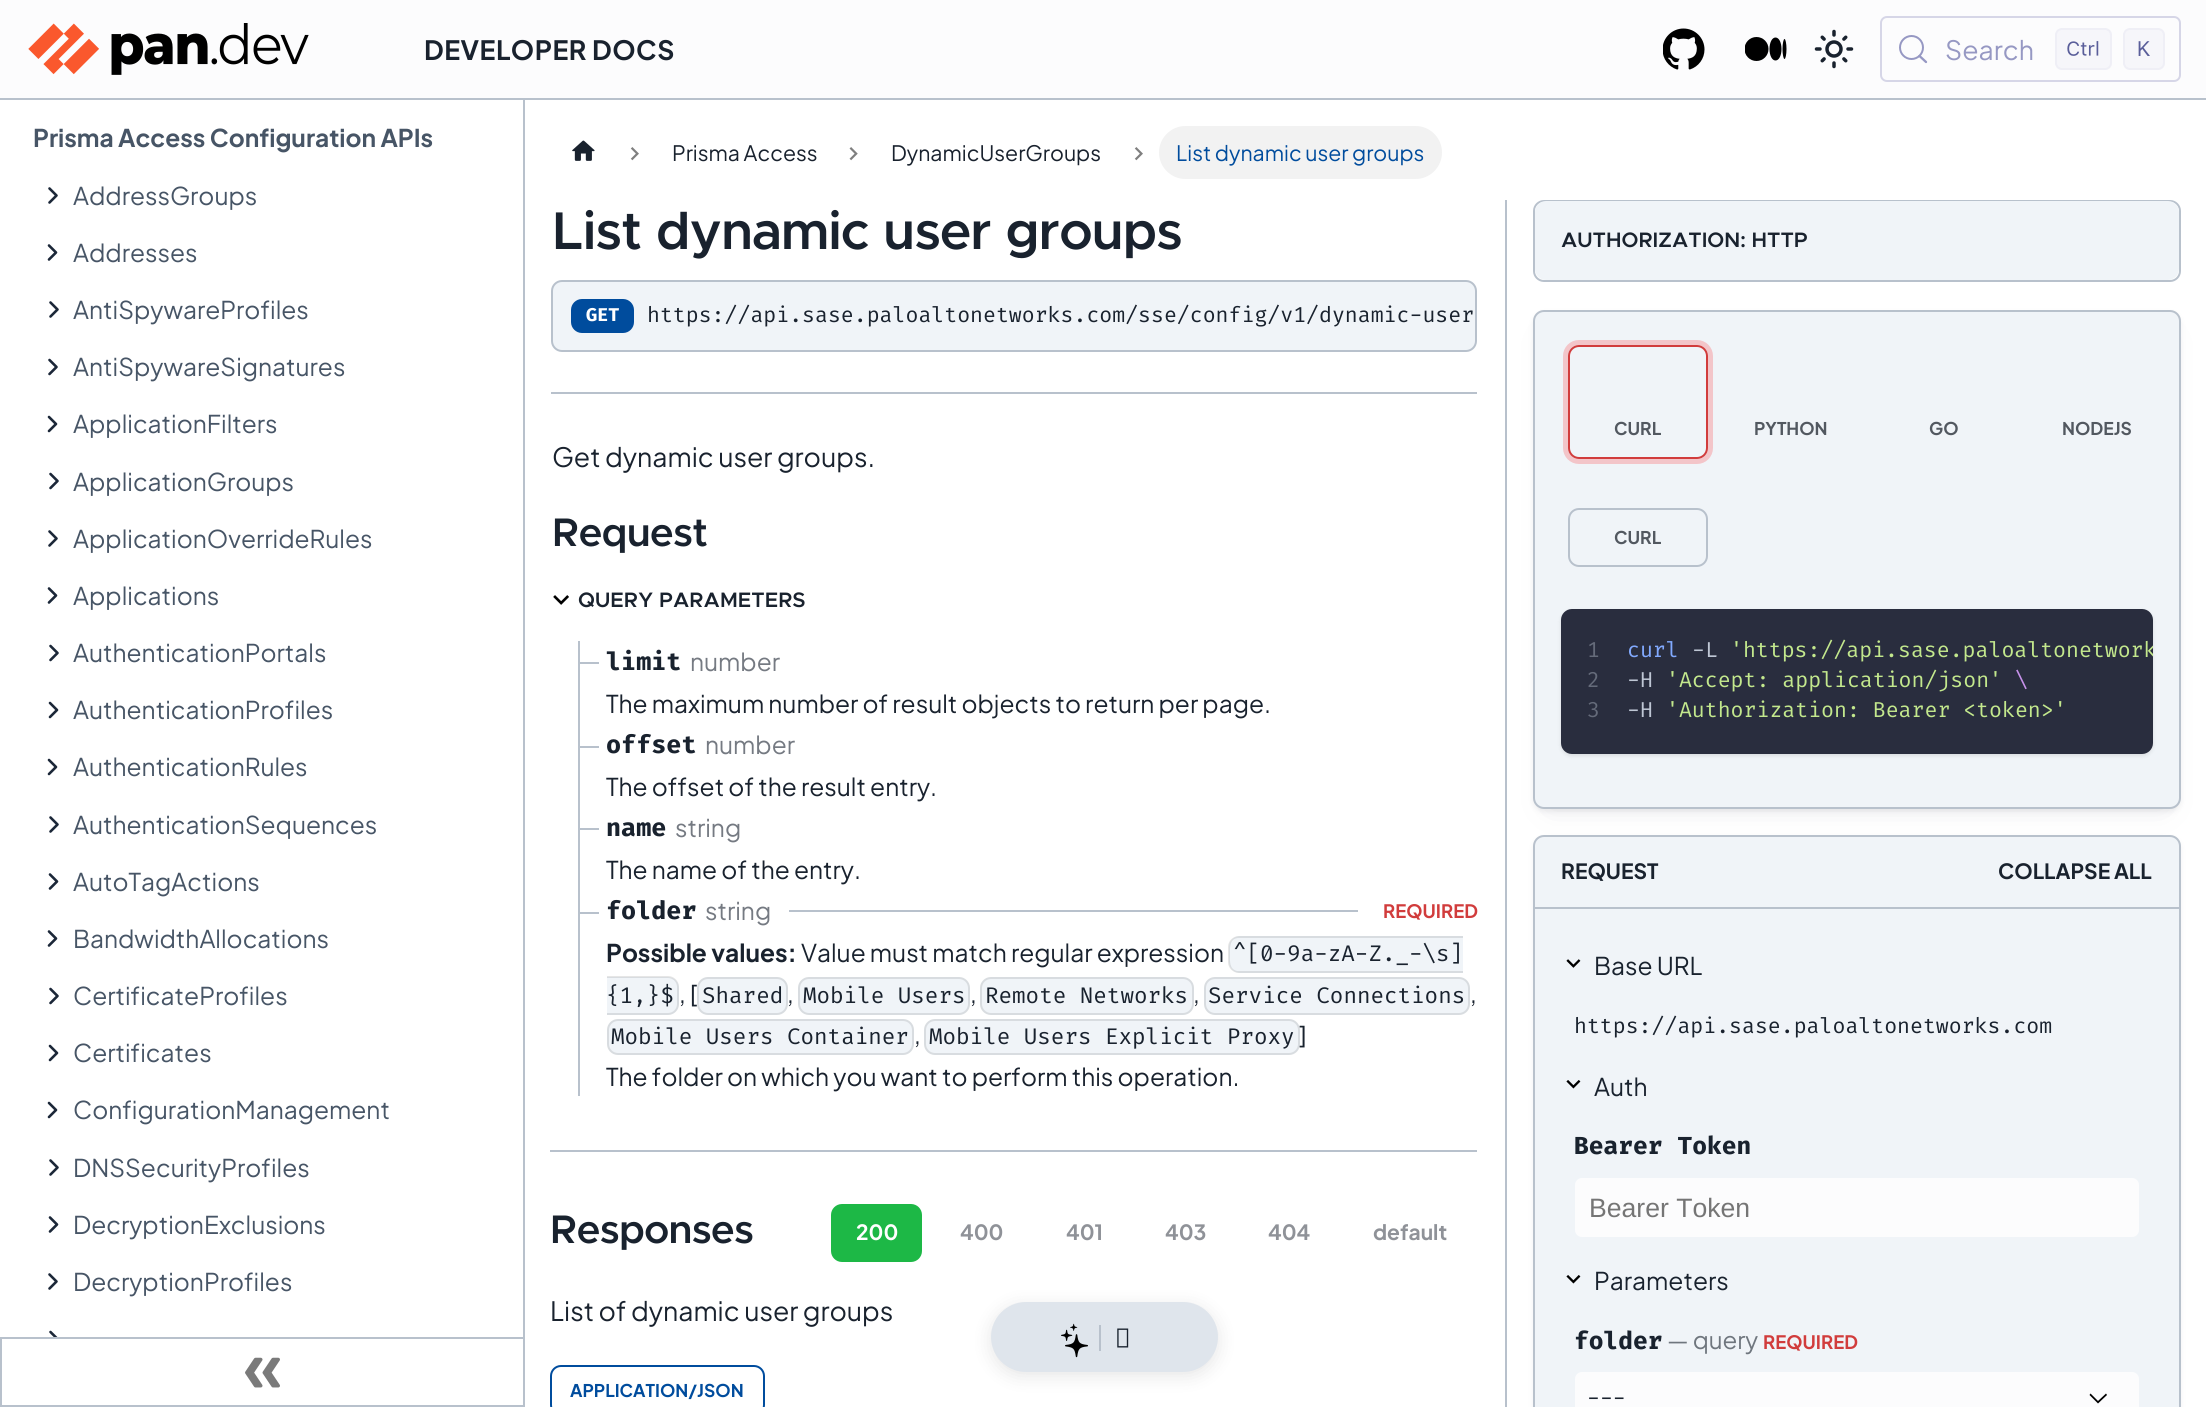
import math
import cairo

surface = cairo.ImageSurface(cairo.FORMAT_RGB24, 2206, 1407)
ctx = cairo.Context(surface)
options = cairo.FontOptions()
options.set_hint_metrics(cairo.HINT_METRICS_OFF)
options.set_hint_style(cairo.HINT_STYLE_NONE)
ctx.set_font_options(options)
ctx.set_miter_limit(4)


def spaced_text(x, y, s, letter, word):
    ctx.move_to(x, y)
    for ch in s:
        ctx.show_text(ch)
        ctx.rel_move_to(letter + word * (ch == ' '), 0)


def round_rect(x, y, w, h, r):
    ctx.new_sub_path()
    for i, (u, v) in enumerate([(x + w - r, y + h - r), (x + r, y + h - r), (x + r, y + r), (x + w - r, y + r)]):
        ctx.arc(u, v, r, i * math.pi / 2, (i + 1) * math.pi / 2)
    ctx.close_path()


def shadow(x, y, w, h, r, blur, alpha):
    ctx.push_group_with_content(cairo.CONTENT_ALPHA)
    ctx.set_operator(cairo.OPERATOR_SOURCE)
    for i in range(15, -16, -2):
        e = blur * i / 6
        if min(w, h) + 2 * e > 0:
            ctx.set_source_rgba(0, 0, 0, alpha * math.erfc((i - 1) / 8.5) / 2)
            round_rect(x - e, y - e, w + 2 * e, h + 2 * e, max(0, min(r + e + blur * .6, min(w, h) / 2 + e)))
            ctx.fill()
    ctx.mask(ctx.pop_group())


def picture(path, x, y, w, h):
    ctx.save()
    ctx.set_source_surface(cairo.ImageSurface.create_from_png(path), x, y)
    ctx.rectangle(x, y, w, h)
    ctx.fill()
    ctx.restore()


ctx.set_source_rgb(1, 1, 1)
ctx.paint()
ctx.set_source_rgb(0.988, 0.988, 0.992)
ctx.rectangle(0, 0, 2206, 98)
ctx.fill()
ctx.set_source_rgb(0.722, 0.757, 0.8)
ctx.rectangle(0, 98, 2206, 2)
ctx.fill()
picture("img1.png", 28, 23, 281, 52)
ctx.select_font_face("Plus Jakarta Sans", cairo.FONT_SLANT_NORMAL, cairo.FONT_WEIGHT_BOLD)
ctx.set_font_size(26.6)
ctx.set_source_rgb(0.098, 0.133, 0.18)
spaced_text(424, 60, "DEVELOPER DOCS", 0.5, 0)
picture("img2.png", 1663, 28, 42, 42)
ctx.save()
ctx.rectangle(1745, 28, 42, 42)
ctx.clip()
ctx.set_source_rgb(0, 0, 0)
ctx.arc(1756.5, 49, 12, 0, 2 * math.pi)
ctx.fill()
ctx.restore()
ctx.set_source_rgb(0, 0, 0)
ctx.new_path()
ctx.move_to(1775.5, 37.5)
ctx.curve_to(1779, 37.5, 1781.5, 42.5, 1781.5, 49)
ctx.curve_to(1781.5, 55.5, 1779, 60.5, 1775.5, 60.5)
ctx.curve_to(1772, 60.5, 1769.5, 55.5, 1769.5, 49)
ctx.curve_to(1769.5, 42.5, 1772, 37.5, 1775.5, 37.5)
ctx.close_path()
ctx.fill()
ctx.new_path()
ctx.move_to(1784.5, 39)
ctx.curve_to(1785.5, 39, 1786.5, 43.5, 1786.5, 49)
ctx.curve_to(1786.5, 54.5, 1785.5, 59, 1784.5, 59)
ctx.curve_to(1783.5, 59, 1782.5, 54.5, 1782.5, 49)
ctx.curve_to(1782.5, 43.5, 1783.5, 39, 1784.5, 39)
ctx.close_path()
ctx.fill()
picture("img3.png", 1814, 29, 40, 40)
round_rect(1881, 17, 299, 64, 6)
ctx.set_source_rgb(0.839, 0.839, 0.906)
ctx.stroke()
ctx.arc(1911.5, 47.5, 11.5, 0, 2 * math.pi)
ctx.set_source_rgb(0.588, 0.596, 0.765)
ctx.stroke()
ctx.new_path()
ctx.move_to(1926, 62)
ctx.line_to(1919.5, 56)
ctx.set_line_width(2.3)
ctx.set_line_cap(cairo.LINE_CAP_ROUND)
ctx.set_line_join(cairo.LINE_JOIN_ROUND)
ctx.stroke()
ctx.select_font_face("Plus Jakarta Sans")
ctx.move_to(1945, 60)
ctx.show_text("Search")
ctx.set_source_rgb(0.961, 0.961, 0.98)
round_rect(2055, 28, 57, 42, 7)
ctx.fill()
round_rect(2056, 29, 55, 40, 6)
ctx.set_source_rgba(0.839, 0.839, 0.906, 0.2)
ctx.set_line_width(2)
ctx.set_line_cap(cairo.LINE_CAP_BUTT)
ctx.set_line_join(cairo.LINE_JOIN_MITER)
ctx.stroke()
picture("img4.png", 2067, 41, 32, 15)
ctx.set_source_rgb(0.961, 0.961, 0.98)
round_rect(2123, 28, 42, 42, 7)
ctx.fill()
round_rect(2124, 29, 40, 40, 6)
ctx.set_source_rgba(0.839, 0.839, 0.906, 0.2)
ctx.stroke()
picture("img5.png", 2138, 41, 12, 15)
ctx.set_source_rgb(0.722, 0.757, 0.8)
ctx.rectangle(523, 100, 2, 1237)
ctx.fill()
ctx.select_font_face("Plus Jakarta Sans", cairo.FONT_SLANT_NORMAL, cairo.FONT_WEIGHT_BOLD)
ctx.set_font_size(24.5)
ctx.set_source_rgb(0.278, 0.333, 0.4)
ctx.move_to(33, 147)
ctx.show_text("Prisma Access Configuration APIs")
ctx.new_path()
ctx.move_to(49.5, 202.5)
ctx.line_to(56.5, 195.5)
ctx.line_to(49.5, 188.5)
ctx.set_source_rgb(0.106, 0.153, 0.22)
ctx.set_line_width(2.6)
ctx.set_line_cap(cairo.LINE_CAP_ROUND)
ctx.set_line_join(cairo.LINE_JOIN_ROUND)
ctx.stroke()
ctx.select_font_face("Plus Jakarta Sans")
ctx.set_source_rgb(0.278, 0.333, 0.4)
ctx.move_to(73, 205)
ctx.show_text("AddressGroups")
ctx.new_path()
ctx.move_to(49, 259.5)
ctx.line_to(56, 252.5)
ctx.line_to(49, 245.5)
ctx.set_source_rgb(0.106, 0.153, 0.22)
ctx.stroke()
ctx.set_source_rgb(0.278, 0.333, 0.4)
ctx.move_to(73, 262)
ctx.show_text("Addresses")
ctx.new_path()
ctx.move_to(50.5, 316.5)
ctx.line_to(57.5, 309.5)
ctx.line_to(50.5, 302.5)
ctx.set_source_rgb(0.106, 0.153, 0.22)
ctx.stroke()
ctx.set_source_rgb(0.278, 0.333, 0.4)
ctx.move_to(73, 319)
ctx.show_text("AntiSpywareProfiles")
ctx.new_path()
ctx.move_to(49.5, 374)
ctx.line_to(56.5, 367)
ctx.line_to(49.5, 360)
ctx.set_source_rgb(0.106, 0.153, 0.22)
ctx.stroke()
ctx.set_source_rgb(0.278, 0.333, 0.4)
ctx.move_to(73, 376)
ctx.show_text("AntiSpywareSignatures")
ctx.new_path()
ctx.move_to(49, 431)
ctx.line_to(56, 424)
ctx.line_to(49, 417)
ctx.set_source_rgb(0.106, 0.153, 0.22)
ctx.stroke()
ctx.set_source_rgb(0.278, 0.333, 0.4)
ctx.move_to(73, 433)
ctx.show_text("ApplicationFilters")
ctx.new_path()
ctx.move_to(50.5, 488)
ctx.line_to(57.5, 481)
ctx.line_to(50.5, 474)
ctx.set_source_rgb(0.106, 0.153, 0.22)
ctx.stroke()
ctx.set_source_rgb(0.278, 0.333, 0.4)
ctx.move_to(73, 491)
ctx.show_text("ApplicationGroups")
ctx.new_path()
ctx.move_to(49.5, 545.5)
ctx.line_to(56.5, 538.5)
ctx.line_to(49.5, 531.5)
ctx.set_source_rgb(0.106, 0.153, 0.22)
ctx.stroke()
ctx.set_source_rgb(0.278, 0.333, 0.4)
ctx.move_to(73, 548)
ctx.show_text("ApplicationOverrideRules")
ctx.new_path()
ctx.move_to(49, 602.5)
ctx.line_to(56, 595.5)
ctx.line_to(49, 588.5)
ctx.set_source_rgb(0.106, 0.153, 0.22)
ctx.stroke()
ctx.set_source_rgb(0.278, 0.333, 0.4)
ctx.move_to(73, 605)
ctx.show_text("Applications")
ctx.new_path()
ctx.move_to(50.5, 660)
ctx.line_to(57.5, 653)
ctx.line_to(50.5, 646)
ctx.set_source_rgb(0.106, 0.153, 0.22)
ctx.stroke()
ctx.set_source_rgb(0.278, 0.333, 0.4)
ctx.move_to(73, 662)
ctx.show_text("AuthenticationPortals")
ctx.new_path()
ctx.move_to(50, 717)
ctx.line_to(57, 710)
ctx.line_to(50, 703)
ctx.set_source_rgb(0.106, 0.153, 0.22)
ctx.stroke()
ctx.set_source_rgb(0.278, 0.333, 0.4)
ctx.move_to(73, 719)
ctx.show_text("AuthenticationProfiles")
ctx.new_path()
ctx.move_to(49, 774)
ctx.line_to(56, 767)
ctx.line_to(49, 760)
ctx.set_source_rgb(0.106, 0.153, 0.22)
ctx.stroke()
ctx.set_source_rgb(0.278, 0.333, 0.4)
ctx.move_to(73, 776)
ctx.show_text("AuthenticationRules")
ctx.new_path()
ctx.move_to(50.5, 831.5)
ctx.line_to(57.5, 824.5)
ctx.line_to(50.5, 817.5)
ctx.set_source_rgb(0.106, 0.153, 0.22)
ctx.stroke()
ctx.set_source_rgb(0.278, 0.333, 0.4)
ctx.move_to(73, 834)
ctx.show_text("AuthenticationSequences")
ctx.new_path()
ctx.move_to(50, 888.5)
ctx.line_to(57, 881.5)
ctx.line_to(50, 874.5)
ctx.set_source_rgb(0.106, 0.153, 0.22)
ctx.stroke()
ctx.set_source_rgb(0.278, 0.333, 0.4)
ctx.move_to(73, 891)
ctx.show_text("AutoTagActions")
ctx.new_path()
ctx.move_to(49, 945.5)
ctx.line_to(56, 938.5)
ctx.line_to(49, 931.5)
ctx.set_source_rgb(0.106, 0.153, 0.22)
ctx.stroke()
ctx.set_source_rgb(0.278, 0.333, 0.4)
ctx.move_to(73, 948)
ctx.show_text("BandwidthAllocations")
ctx.new_path()
ctx.move_to(50.5, 1003)
ctx.line_to(57.5, 996)
ctx.line_to(50.5, 989)
ctx.set_source_rgb(0.106, 0.153, 0.22)
ctx.stroke()
ctx.set_source_rgb(0.278, 0.333, 0.4)
ctx.move_to(73, 1005)
ctx.show_text("CertificateProfiles")
ctx.new_path()
ctx.move_to(50, 1060)
ctx.line_to(57, 1053)
ctx.line_to(50, 1046)
ctx.set_source_rgb(0.106, 0.153, 0.22)
ctx.stroke()
ctx.set_source_rgb(0.278, 0.333, 0.4)
ctx.move_to(73, 1062)
ctx.show_text("Certificates")
ctx.new_path()
ctx.move_to(49, 1117)
ctx.line_to(56, 1110)
ctx.line_to(49, 1103)
ctx.set_source_rgb(0.106, 0.153, 0.22)
ctx.stroke()
ctx.set_source_rgb(0.278, 0.333, 0.4)
ctx.move_to(73, 1119)
ctx.show_text("ConfigurationManagement")
ctx.new_path()
ctx.move_to(50.5, 1174.5)
ctx.line_to(57.5, 1167.5)
ctx.line_to(50.5, 1160.5)
ctx.set_source_rgb(0.106, 0.153, 0.22)
ctx.stroke()
ctx.set_source_rgb(0.278, 0.333, 0.4)
ctx.move_to(73, 1177)
ctx.show_text("DNSSecurityProfiles")
ctx.new_path()
ctx.move_to(50, 1231.5)
ctx.line_to(57, 1224.5)
ctx.line_to(50, 1217.5)
ctx.set_source_rgb(0.106, 0.153, 0.22)
ctx.stroke()
ctx.set_source_rgb(0.278, 0.333, 0.4)
ctx.move_to(73, 1234)
ctx.show_text("DecryptionExclusions")
ctx.new_path()
ctx.move_to(49.5, 1288.5)
ctx.line_to(56.5, 1281.5)
ctx.line_to(49.5, 1274.5)
ctx.set_source_rgb(0.106, 0.153, 0.22)
ctx.stroke()
ctx.set_source_rgb(0.278, 0.333, 0.4)
ctx.move_to(73, 1291)
ctx.show_text("DecryptionProfiles")
ctx.save()
ctx.rectangle(0, 100, 525, 1237)
ctx.clip()
ctx.new_path()
ctx.move_to(50.5, 1346)
ctx.line_to(57.5, 1339)
ctx.line_to(50.5, 1332)
ctx.set_source_rgb(0.106, 0.153, 0.22)
ctx.stroke()
ctx.restore()
ctx.rectangle(1, 1338, 523, 68)
ctx.set_source_rgb(0.722, 0.757, 0.8)
ctx.set_line_width(2)
ctx.set_line_cap(cairo.LINE_CAP_BUTT)
ctx.set_line_join(cairo.LINE_JOIN_MITER)
ctx.stroke()
picture("img6.png", 245, 1357, 35, 31)
picture("img7.png", 572, 140, 23, 21)
picture("img8.png", 630, 147, 9, 14)
ctx.set_font_size(21.25)
ctx.set_source_rgb(0.098, 0.133, 0.18)
ctx.move_to(672, 161)
ctx.show_text("Prisma Access")
picture("img9.png", 849, 147, 9, 14)
ctx.move_to(891, 161)
ctx.show_text("DynamicUserGroups")
picture("img8.png", 1134, 147, 9, 14)
ctx.set_source_rgb(0.949, 0.949, 0.949)
round_rect(1159, 126, 283, 53, 26.5)
ctx.fill()
ctx.set_source_rgb(0, 0.298, 0.616)
ctx.move_to(1176, 161)
ctx.show_text("List dynamic user groups")
ctx.set_source_rgb(0.722, 0.757, 0.8)
ctx.rectangle(1505, 200, 2, 1207)
ctx.fill()
ctx.select_font_face("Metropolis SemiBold")
ctx.set_font_size(53.25)
ctx.set_source_rgb(0.098, 0.133, 0.18)
ctx.move_to(552, 249)
ctx.show_text("List dynamic user groups")
ctx.set_source_rgb(0.941, 0.957, 0.969)
round_rect(552, 281, 924, 70, 10)
ctx.fill_preserve()
ctx.set_source_rgb(0.722, 0.757, 0.8)
ctx.stroke()
ctx.set_source_rgb(0, 0.298, 0.616)
round_rect(572, 300, 61, 32, 10)
ctx.fill_preserve()
ctx.stroke()
ctx.select_font_face("Fira Code", cairo.FONT_SLANT_NORMAL, cairo.FONT_WEIGHT_BOLD)
ctx.set_font_size(18)
ctx.set_source_rgb(1, 1, 1)
ctx.move_to(586, 321)
ctx.show_text("GET")
ctx.select_font_face("Fira Code")
ctx.set_font_size(21)
ctx.set_source_rgb(0.098, 0.133, 0.18)
ctx.move_to(647, 322)
ctx.show_text("https://api.sase.paloaltonetworks.com/sse/config/v1/dynamic-user")
ctx.set_source_rgb(0.722, 0.757, 0.8)
ctx.rectangle(551, 392, 926, 2)
ctx.fill()
ctx.select_font_face("Plus Jakarta Sans")
ctx.set_font_size(26.6)
ctx.set_source_rgb(0.098, 0.133, 0.18)
ctx.move_to(552, 467)
ctx.show_text("Get dynamic user groups.")
ctx.select_font_face("Metropolis SemiBold")
ctx.set_font_size(40)
ctx.move_to(552, 546)
ctx.show_text("Request")
picture("img10.png", 553, 595, 16, 10)
ctx.set_font_size(21)
ctx.move_to(578, 607)
ctx.show_text("QUERY PARAMETERS")
ctx.set_source_rgb(0.722, 0.757, 0.8)
ctx.rectangle(578, 641, 2, 455)
ctx.fill()
ctx.rectangle(579, 662, 20, 2)
ctx.fill()
ctx.select_font_face("Fira Code", cairo.FONT_SLANT_NORMAL, cairo.FONT_WEIGHT_BOLD)
ctx.set_font_size(24.5)
ctx.set_source_rgb(0.098, 0.133, 0.18)
ctx.move_to(606, 670)
ctx.show_text("limit")
ctx.select_font_face("Plus Jakarta Sans")
ctx.set_source_rgb(0.459, 0.478, 0.51)
ctx.move_to(690, 671)
ctx.show_text("number")
ctx.set_source_rgb(0.098, 0.133, 0.18)
ctx.move_to(606, 713)
ctx.show_text("The maximum number of result objects to return per page.")
ctx.set_source_rgb(0.722, 0.757, 0.8)
ctx.rectangle(579, 746, 20, 2)
ctx.fill()
ctx.select_font_face("Fira Code", cairo.FONT_SLANT_NORMAL, cairo.FONT_WEIGHT_BOLD)
ctx.set_source_rgb(0.098, 0.133, 0.18)
ctx.move_to(606, 753)
ctx.show_text("offset")
ctx.select_font_face("Plus Jakarta Sans")
ctx.set_source_rgb(0.459, 0.478, 0.51)
ctx.move_to(705, 754)
ctx.show_text("number")
ctx.set_source_rgb(0.098, 0.133, 0.18)
ctx.move_to(606, 796)
ctx.show_text("The offset of the result entry.")
ctx.set_source_rgb(0.722, 0.757, 0.8)
ctx.rectangle(579, 828, 20, 2)
ctx.fill()
ctx.select_font_face("Fira Code", cairo.FONT_SLANT_NORMAL, cairo.FONT_WEIGHT_BOLD)
ctx.set_source_rgb(0.098, 0.133, 0.18)
ctx.move_to(606, 836)
ctx.show_text("name")
ctx.select_font_face("Plus Jakarta Sans")
ctx.set_source_rgb(0.459, 0.478, 0.51)
ctx.move_to(675, 837)
ctx.show_text("string")
ctx.set_source_rgb(0.098, 0.133, 0.18)
ctx.move_to(606, 879)
ctx.show_text("The name of the entry.")
ctx.set_source_rgb(0.722, 0.757, 0.8)
ctx.rectangle(579, 912, 20, 2)
ctx.fill()
ctx.select_font_face("Fira Code", cairo.FONT_SLANT_NORMAL, cairo.FONT_WEIGHT_BOLD)
ctx.set_source_rgb(0.098, 0.133, 0.18)
ctx.move_to(606, 919)
ctx.show_text("folder")
ctx.select_font_face("Plus Jakarta Sans")
ctx.set_source_rgb(0.459, 0.478, 0.51)
ctx.move_to(705, 920)
ctx.show_text("string")
ctx.set_source_rgb(0.722, 0.757, 0.8)
ctx.rectangle(789, 910, 569, 2)
ctx.fill()
ctx.select_font_face("Plus Jakarta Sans", cairo.FONT_SLANT_NORMAL, cairo.FONT_WEIGHT_BOLD)
ctx.set_font_size(18.5)
ctx.set_source_rgb(0.82, 0.235, 0.235)
ctx.move_to(1383, 918)
ctx.show_text("REQUIRED")
ctx.set_font_size(24.5)
ctx.set_source_rgb(0.098, 0.133, 0.18)
ctx.move_to(606, 962)
ctx.show_text("Possible values:")
ctx.select_font_face("Plus Jakarta Sans")
ctx.move_to(801, 962)
ctx.show_text("Value must match regular expression")
ctx.set_source_rgb(0.941, 0.957, 0.969)
ctx.new_path()
ctx.move_to(1240, 936)
ctx.line_to(1463, 936)
ctx.line_to(1463, 973)
ctx.line_to(1240, 973)
ctx.curve_to(1234, 973, 1229, 968, 1229, 962)
ctx.line_to(1229, 947)
ctx.curve_to(1229, 941, 1234, 936, 1240, 936)
ctx.close_path()
ctx.fill()
ctx.set_source_rgba(0, 0, 0, 0.1)
ctx.set_fill_rule(cairo.FILL_RULE_EVEN_ODD)
ctx.new_path()
ctx.move_to(1239, 936)
ctx.line_to(1463, 936)
ctx.line_to(1463, 973)
ctx.line_to(1239, 973)
ctx.curve_to(1233, 973, 1228, 968, 1228, 962)
ctx.line_to(1228, 947)
ctx.curve_to(1228, 941, 1233, 936, 1239, 936)
ctx.close_path()
ctx.move_to(1239, 938)
ctx.line_to(1463, 938)
ctx.line_to(1463, 971)
ctx.line_to(1237, 971)
ctx.curve_to(1229, 969, 1230, 961, 1230, 955)
ctx.curve_to(1230, 948, 1229, 938, 1239, 938)
ctx.close_path()
ctx.fill()
ctx.select_font_face("Fira Code")
ctx.set_font_size(22)
ctx.set_source_rgb(0.098, 0.133, 0.18)
ctx.move_to(1233, 961)
ctx.show_text("^[0-9a-zA-Z._-\\s]")
ctx.set_source_rgb(0.941, 0.957, 0.969)
ctx.new_path()
ctx.move_to(607, 977)
ctx.line_to(668, 977)
ctx.curve_to(674, 977, 679, 982, 679, 988)
ctx.line_to(679, 1004)
ctx.curve_to(679, 1010, 674, 1015, 668, 1015)
ctx.line_to(607, 1015)
ctx.close_path()
ctx.fill()
ctx.set_source_rgba(0, 0, 0, 0.1)
ctx.new_path()
ctx.move_to(607, 976)
ctx.line_to(668, 976)
ctx.curve_to(674, 976, 679, 981, 679, 987)
ctx.line_to(679, 1004)
ctx.curve_to(679, 1010, 674, 1015, 668, 1015)
ctx.line_to(607, 1015)
ctx.close_path()
ctx.move_to(607, 978)
ctx.line_to(668, 978)
ctx.curve_to(673, 978, 677, 982, 677, 987)
ctx.line_to(677, 1004)
ctx.curve_to(677, 1009, 673, 1013, 668, 1013)
ctx.line_to(607, 1013)
ctx.close_path()
ctx.fill()
ctx.set_source_rgb(0.098, 0.133, 0.18)
ctx.move_to(606, 1003)
ctx.show_text("{1,}$")
ctx.select_font_face("Plus Jakarta Sans")
ctx.set_font_size(24.5)
ctx.move_to(679, 1003)
ctx.show_text(", [")
ctx.set_source_rgb(0.941, 0.957, 0.969)
round_rect(697, 977, 91, 38, 11)
ctx.fill()
round_rect(698, 978, 89, 36, 10)
ctx.set_source_rgba(0, 0, 0, 0.1)
ctx.stroke()
ctx.select_font_face("Fira Code")
ctx.set_font_size(22)
ctx.set_source_rgb(0.098, 0.133, 0.18)
ctx.move_to(702, 1003)
ctx.show_text("Shared")
ctx.select_font_face("Plus Jakarta Sans")
ctx.set_font_size(24.5)
ctx.move_to(787, 1003)
ctx.show_text(",")
ctx.set_source_rgb(0.941, 0.957, 0.969)
round_rect(798, 977, 172, 38, 11)
ctx.fill()
round_rect(799, 978, 170, 36, 10)
ctx.set_source_rgba(0, 0, 0, 0.1)
ctx.stroke()
ctx.select_font_face("Fira Code")
ctx.set_font_size(22)
ctx.set_source_rgb(0.098, 0.133, 0.18)
ctx.move_to(803, 1003)
ctx.show_text("Mobile Users")
ctx.select_font_face("Plus Jakarta Sans")
ctx.set_font_size(24.5)
ctx.move_to(970, 1003)
ctx.show_text(",")
ctx.set_source_rgb(0.941, 0.957, 0.969)
round_rect(980, 977, 214, 38, 11)
ctx.fill()
round_rect(981, 978, 212, 36, 10)
ctx.set_source_rgba(0, 0, 0, 0.1)
ctx.stroke()
ctx.select_font_face("Fira Code")
ctx.set_font_size(22)
ctx.set_source_rgb(0.098, 0.133, 0.18)
ctx.move_to(985, 1003)
ctx.show_text("Remote Networks")
ctx.select_font_face("Plus Jakarta Sans")
ctx.set_font_size(24.5)
ctx.move_to(1193, 1003)
ctx.show_text(",")
ctx.set_source_rgb(0.941, 0.957, 0.969)
round_rect(1204, 977, 266, 38, 11)
ctx.fill()
round_rect(1205, 978, 264, 36, 10)
ctx.set_source_rgba(0, 0, 0, 0.1)
ctx.stroke()
ctx.select_font_face("Fira Code")
ctx.set_font_size(22)
ctx.set_source_rgb(0.098, 0.133, 0.18)
ctx.move_to(1208, 1003)
ctx.show_text("Service Connections")
ctx.select_font_face("Plus Jakarta Sans")
ctx.set_font_size(24.5)
ctx.move_to(1470, 1003)
ctx.show_text(",")
ctx.set_source_rgb(0.941, 0.957, 0.969)
round_rect(607, 1019, 307, 36, 11)
ctx.fill()
round_rect(608, 1020, 305, 34, 10)
ctx.set_source_rgba(0, 0, 0, 0.1)
ctx.stroke()
ctx.select_font_face("Fira Code")
ctx.set_font_size(22)
ctx.set_source_rgb(0.098, 0.133, 0.18)
ctx.move_to(611, 1044)
ctx.show_text("Mobile Users Container")
ctx.select_font_face("Plus Jakarta Sans")
ctx.set_font_size(24.5)
ctx.move_to(914, 1044)
ctx.show_text(",")
ctx.set_source_rgb(0.941, 0.957, 0.969)
round_rect(924, 1019, 376, 36, 11)
ctx.fill()
round_rect(925, 1020, 374, 34, 10)
ctx.set_source_rgba(0, 0, 0, 0.1)
ctx.stroke()
ctx.select_font_face("Fira Code")
ctx.set_font_size(22)
ctx.set_source_rgb(0.098, 0.133, 0.18)
ctx.move_to(929, 1044)
ctx.show_text("Mobile Users Explicit Proxy")
ctx.select_font_face("Plus Jakarta Sans")
ctx.set_font_size(24.5)
ctx.move_to(1299, 1044)
ctx.show_text("]")
ctx.move_to(606, 1086)
ctx.show_text("The folder on which you want to perform this operation.")
ctx.set_source_rgb(0.722, 0.757, 0.8)
ctx.rectangle(550, 1150, 927, 2)
ctx.fill()
ctx.select_font_face("Metropolis SemiBold")
ctx.set_font_size(40)
ctx.set_source_rgb(0.098, 0.133, 0.18)
ctx.move_to(550, 1243)
ctx.show_text("Responses")
ctx.set_source_rgb(0.114, 0.722, 0.275)
round_rect(831, 1204, 91, 58, 11)
ctx.fill()
ctx.select_font_face("Plus Jakarta Sans", cairo.FONT_SLANT_NORMAL, cairo.FONT_WEIGHT_BOLD)
ctx.set_font_size(21)
ctx.set_source_rgb(1, 1, 1)
ctx.move_to(856, 1240)
ctx.show_text("200")
ctx.set_source_rgb(0.561, 0.573, 0.596)
ctx.move_to(960, 1240)
ctx.show_text("400")
ctx.move_to(1066, 1240)
ctx.show_text("401")
ctx.move_to(1165, 1240)
ctx.show_text("403")
ctx.move_to(1268, 1240)
ctx.show_text("404")
ctx.move_to(1373, 1240)
ctx.show_text("default")
ctx.select_font_face("Plus Jakarta Sans")
ctx.set_font_size(26.6)
ctx.set_source_rgb(0.098, 0.133, 0.18)
ctx.move_to(550, 1321)
ctx.show_text("List of dynamic user groups")
round_rect(551, 1366, 213, 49, 10)
ctx.set_source_rgb(0, 0.298, 0.616)
ctx.stroke()
ctx.select_font_face("Plus Jakarta Sans", cairo.FONT_SLANT_NORMAL, cairo.FONT_WEIGHT_BOLD)
ctx.set_font_size(17.5)
ctx.move_to(570, 1397)
ctx.show_text("APPLICATION/JSON")
round_rect(1534, 201, 646, 80, 10)
ctx.set_source_rgb(0.722, 0.757, 0.8)
ctx.stroke()
ctx.set_source_rgb(0.941, 0.957, 0.969)
round_rect(1535, 201, 644, 79, 11)
ctx.fill()
ctx.select_font_face("Metropolis SemiBold")
ctx.set_font_size(21)
ctx.set_source_rgb(0.098, 0.133, 0.18)
ctx.move_to(1561, 247)
ctx.show_text("AUTHORIZATION: HTTP")
ctx.set_source_rgb(0.396, 0.416, 0.463)
shadow(1551, 341, 612, 464, 0, 14, 0.2)
shadow(1533, 313, 648, 499, 11, 2.5, 0.1)
ctx.set_source_rgb(0.941, 0.957, 0.969)
round_rect(1534, 311, 646, 497, 10)
ctx.fill_preserve()
ctx.set_source_rgb(0.722, 0.757, 0.8)
ctx.stroke()
round_rect(1565.5, 342.5, 145, 119, 13.5)
ctx.set_source_rgb(0.953, 0.773, 0.788)
ctx.set_line_width(5)
ctx.stroke()
round_rect(1569, 346, 138, 112, 10)
ctx.set_source_rgb(0.82, 0.235, 0.235)
ctx.set_line_width(2)
ctx.stroke()
ctx.select_font_face("Plus Jakarta Sans", cairo.FONT_SLANT_NORMAL, cairo.FONT_WEIGHT_BOLD)
ctx.set_font_size(17.5)
ctx.set_source_rgb(0.322, 0.345, 0.376)
ctx.move_to(1614, 435)
ctx.show_text("CURL")
ctx.move_to(1754, 435)
ctx.show_text("PYTHON")
ctx.move_to(1929, 435)
ctx.show_text("GO")
ctx.move_to(2062, 435)
ctx.show_text("NODEJS")
round_rect(1569, 509, 138, 57, 10)
ctx.set_source_rgb(0.722, 0.757, 0.8)
ctx.stroke()
ctx.set_source_rgb(0.322, 0.345, 0.376)
ctx.move_to(1614, 544)
ctx.show_text("CURL")
ctx.set_source_rgb(0, 0, 0)
shadow(1561, 611, 592, 145, 11, 2, 0.1)
ctx.set_source_rgb(0.161, 0.176, 0.243)
round_rect(1561, 609, 592, 145, 11)
ctx.fill()
ctx.select_font_face("Fira Code")
ctx.set_font_size(21)
ctx.set_source_rgb(0.396, 0.42, 0.478)
ctx.move_to(1587, 657)
ctx.show_text("1")
ctx.set_source_rgb(0.51, 0.667, 1)
ctx.move_to(1627, 657)
ctx.show_text("curl")
ctx.set_source_rgb(0.749, 0.78, 0.835)
ctx.move_to(1692, 657)
ctx.show_text("-L")
ctx.save()
ctx.set_fill_rule(cairo.FILL_RULE_WINDING)
round_rect(1561, 609, 592, 145, 11)
ctx.clip()
ctx.set_source_rgb(0.765, 0.91, 0.553)
ctx.move_to(1730, 657)
ctx.show_text("'https://api.sase.paloaltonetwork")
ctx.restore()
ctx.set_source_rgb(0.396, 0.42, 0.478)
ctx.move_to(1587, 687)
ctx.show_text("2")
ctx.set_source_rgb(0.749, 0.78, 0.835)
ctx.move_to(1627, 687)
ctx.show_text("-H")
ctx.set_source_rgb(0.765, 0.91, 0.553)
ctx.move_to(1666, 687)
ctx.show_text("'Accept: application/json'")
ctx.set_source_rgb(0.78, 0.573, 0.918)
ctx.move_to(2015, 687)
ctx.show_text("\\")
ctx.set_source_rgb(0.396, 0.42, 0.478)
ctx.move_to(1587, 717)
ctx.show_text("3")
ctx.set_source_rgb(0.749, 0.78, 0.835)
ctx.move_to(1627, 717)
ctx.show_text("-H")
ctx.set_source_rgb(0.765, 0.91, 0.553)
ctx.move_to(1666, 717)
ctx.show_text("'Authorization: Bearer <token>'")
ctx.set_source_rgb(0.396, 0.416, 0.463)
shadow(1533, 838, 648, 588, 11, 2.5, 0.1)
ctx.set_source_rgb(0.941, 0.957, 0.969)
round_rect(1534, 836, 646, 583, 10)
ctx.fill_preserve()
ctx.set_source_rgb(0.722, 0.757, 0.8)
ctx.stroke()
ctx.rectangle(1535, 907, 644, 2)
ctx.fill()
ctx.select_font_face("Plus Jakarta Sans", cairo.FONT_SLANT_NORMAL, cairo.FONT_WEIGHT_BOLD)
ctx.set_source_rgb(0.098, 0.133, 0.18)
ctx.move_to(1561, 879)
ctx.show_text("REQUEST")
ctx.move_to(1998, 879)
ctx.show_text("COLLAPSE ALL")
picture("img11.png", 1566, 959, 15, 9)
ctx.select_font_face("Plus Jakarta Sans")
ctx.set_font_size(24.5)
ctx.move_to(1594, 975)
ctx.show_text("Base URL")
ctx.select_font_face("Fira Code")
ctx.set_font_size(21)
ctx.move_to(1574, 1033)
ctx.show_text("https://api.sase.paloaltonetworks.com")
picture("img12.png", 1566, 1080, 15, 9)
ctx.select_font_face("Plus Jakarta Sans")
ctx.set_font_size(24.5)
ctx.move_to(1594, 1096)
ctx.show_text("Auth")
ctx.select_font_face("Fira Code", cairo.FONT_SLANT_NORMAL, cairo.FONT_WEIGHT_BOLD)
ctx.set_font_size(24)
ctx.move_to(1574, 1154)
ctx.show_text("Bearer Token")
ctx.set_source_rgb(0.988, 0.988, 0.992)
round_rect(1575, 1178, 564, 59, 7)
ctx.fill()
ctx.select_font_face("Liberation Sans")
ctx.set_font_size(26.6)
ctx.set_source_rgb(0.459, 0.459, 0.459)
ctx.move_to(1589, 1217)
ctx.show_text("Bearer Token")
picture("img13.png", 1566, 1275, 15, 9)
ctx.select_font_face("Plus Jakarta Sans")
ctx.set_font_size(24.5)
ctx.set_source_rgb(0.098, 0.133, 0.18)
ctx.move_to(1594, 1290)
ctx.show_text("Parameters")
ctx.select_font_face("Fira Code", cairo.FONT_SLANT_NORMAL, cairo.FONT_WEIGHT_BOLD)
ctx.set_font_size(24)
ctx.move_to(1574, 1349)
ctx.show_text("folder")
ctx.select_font_face("Plus Jakarta Sans")
ctx.set_source_rgb(0.435, 0.463, 0.494)
ctx.move_to(1667, 1349)
ctx.show_text("— query")
ctx.select_font_face("Plus Jakarta Sans", cairo.FONT_SLANT_NORMAL, cairo.FONT_WEIGHT_BOLD)
ctx.set_font_size(18.5)
ctx.set_source_rgb(0.82, 0.235, 0.235)
ctx.move_to(1763, 1349)
ctx.show_text("REQUIRED")
ctx.set_source_rgb(0.988, 0.988, 0.992)
round_rect(1575, 1372, 564, 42, 7)
ctx.fill()
ctx.set_source_rgb(0, 0, 0)
ctx.set_fill_rule(cairo.FILL_RULE_WINDING)
ctx.new_path()
ctx.move_to(2098, 1403.5)
ctx.line_to(2089.5, 1395)
ctx.line_to(2090.5, 1393.5)
ctx.line_to(2098, 1401)
ctx.line_to(2106, 1393.5)
ctx.line_to(2107, 1395)
ctx.close_path()
ctx.fill()
ctx.select_font_face("Fira Code")
ctx.set_font_size(21)
ctx.set_source_rgb(0.098, 0.133, 0.18)
ctx.move_to(1587, 1405)
ctx.show_text("---")
ctx.set_source_rgb(0, 0, 0)
shadow(991, 1306, 227, 70, 35, 9, 0.1)
ctx.set_source_rgb(0.875, 0.898, 0.922)
round_rect(991, 1302, 227, 70, 35)
ctx.fill()
picture("img14.png", 1061, 1323, 27, 35)
ctx.set_source_rgb(0.722, 0.757, 0.8)
ctx.rectangle(1099, 1325, 2, 26)
ctx.fill()
picture("img15.png", 1117, 1328, 12, 20)
surface.write_to_png("page.png")
